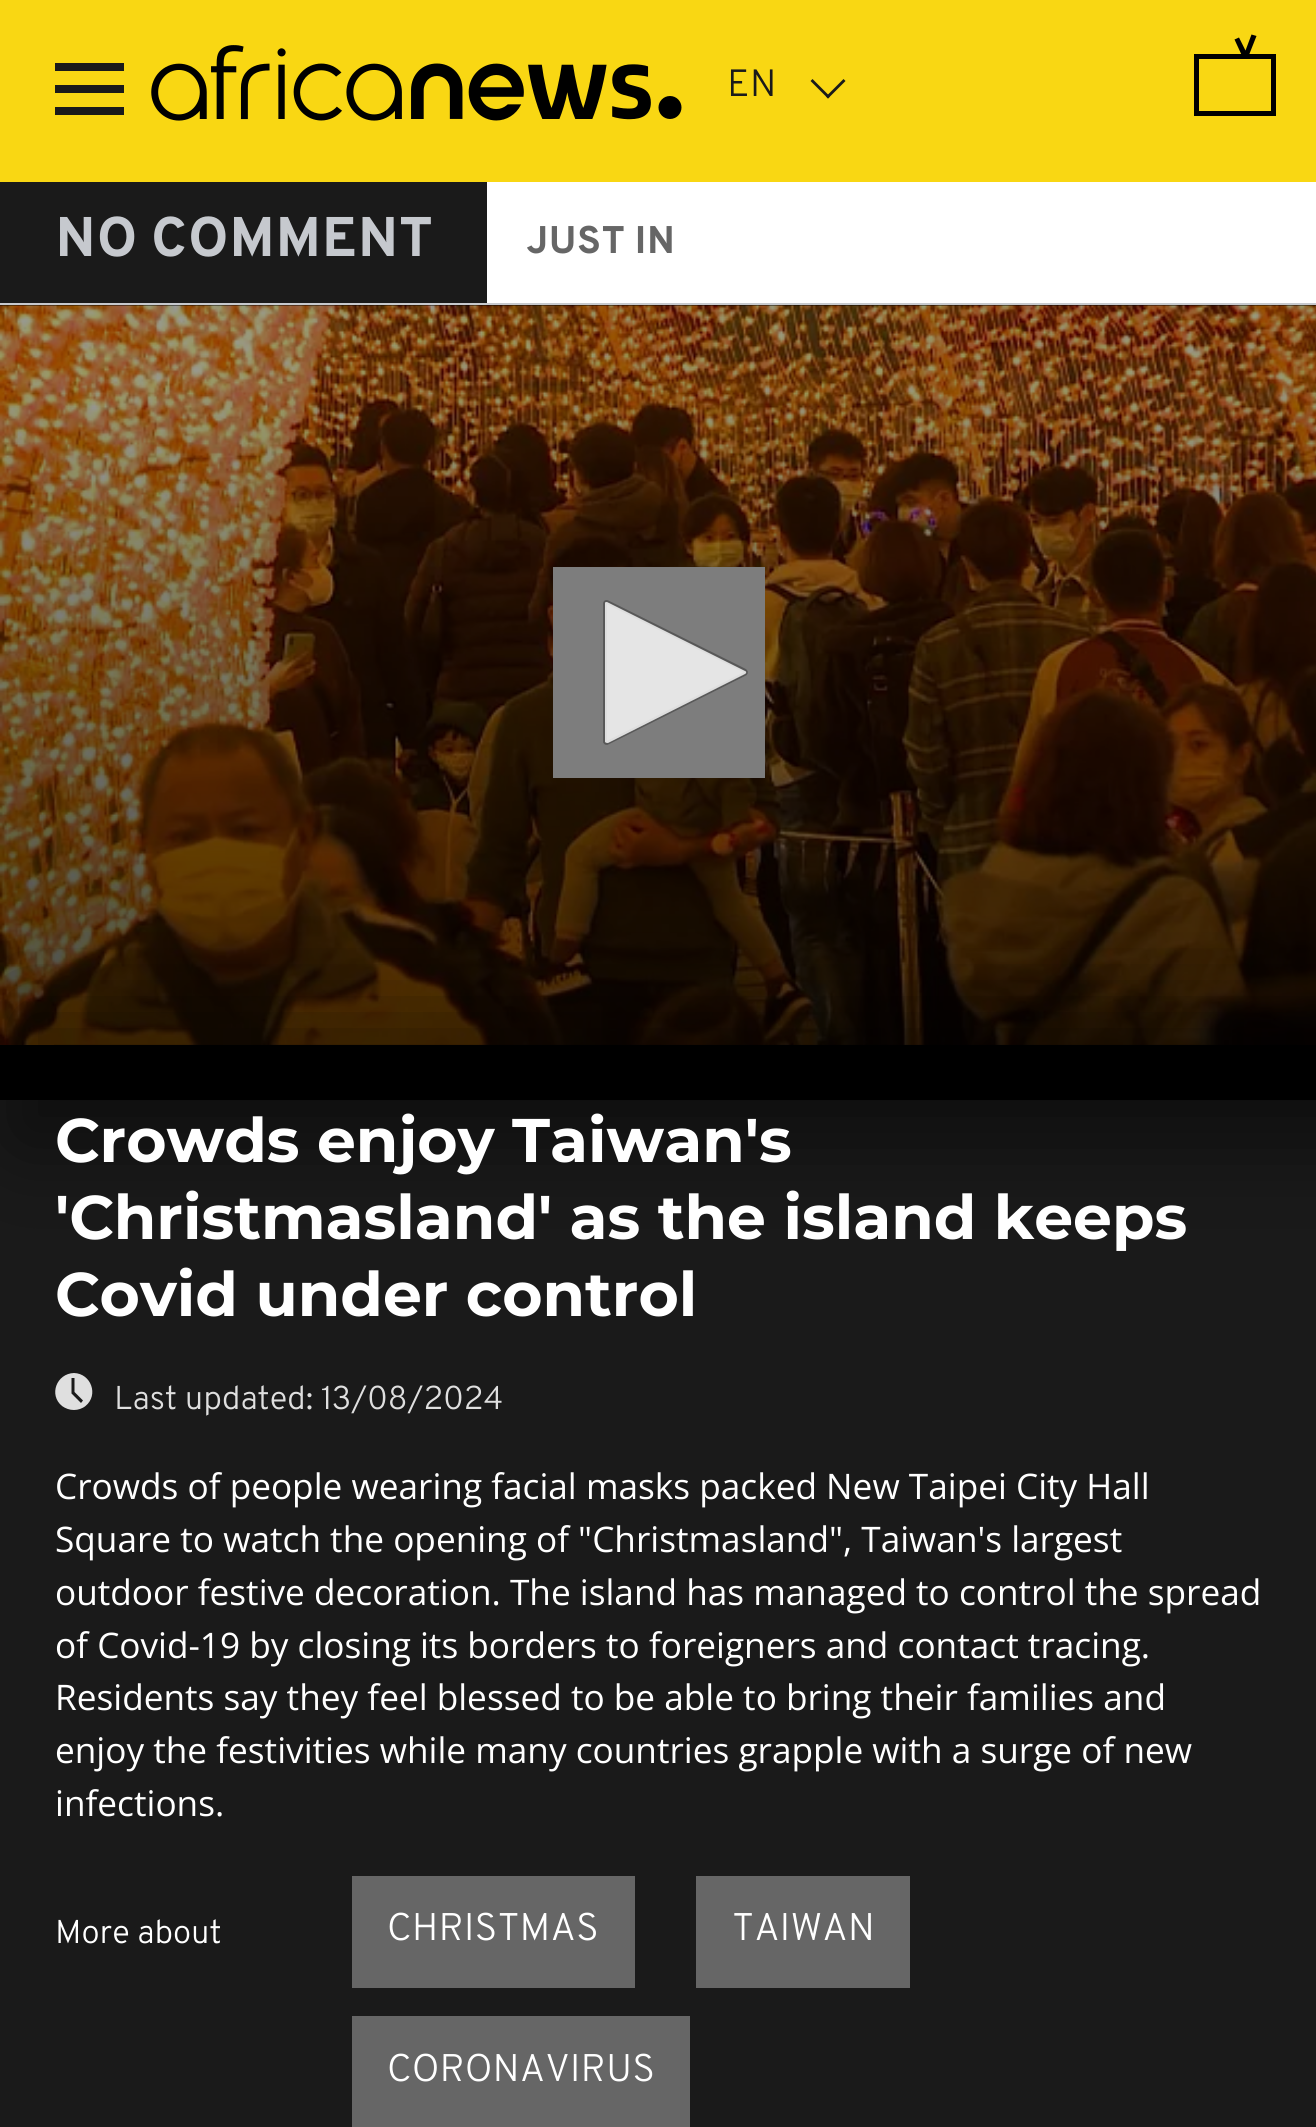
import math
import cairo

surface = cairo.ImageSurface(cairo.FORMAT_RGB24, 1316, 2127)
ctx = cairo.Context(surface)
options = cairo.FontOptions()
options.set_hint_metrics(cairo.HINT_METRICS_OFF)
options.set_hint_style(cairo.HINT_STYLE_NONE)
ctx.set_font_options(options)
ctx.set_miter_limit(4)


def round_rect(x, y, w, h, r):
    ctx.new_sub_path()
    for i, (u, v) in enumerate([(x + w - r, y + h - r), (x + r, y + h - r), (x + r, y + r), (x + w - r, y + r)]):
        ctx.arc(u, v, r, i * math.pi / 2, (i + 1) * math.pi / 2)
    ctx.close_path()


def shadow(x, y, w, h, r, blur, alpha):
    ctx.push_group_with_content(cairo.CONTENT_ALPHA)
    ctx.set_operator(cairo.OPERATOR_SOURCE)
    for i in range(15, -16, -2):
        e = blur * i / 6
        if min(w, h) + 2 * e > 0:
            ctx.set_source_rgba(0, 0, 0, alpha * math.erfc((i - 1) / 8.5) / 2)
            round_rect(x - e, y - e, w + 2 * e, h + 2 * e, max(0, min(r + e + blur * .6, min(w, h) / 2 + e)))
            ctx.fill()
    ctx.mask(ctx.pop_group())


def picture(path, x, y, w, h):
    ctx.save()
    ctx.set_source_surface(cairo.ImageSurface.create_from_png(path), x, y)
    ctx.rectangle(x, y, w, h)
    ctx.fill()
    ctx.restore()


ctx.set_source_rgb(1, 1, 1)
ctx.paint()
ctx.set_source_rgb(0.976, 0.843, 0.075)
ctx.rectangle(0, 0, 1316, 182)
ctx.fill()
ctx.set_source_rgb(0.102, 0.102, 0.102)
ctx.rectangle(55, 85, 69, 8)
ctx.fill()
ctx.rectangle(55, 63, 69, 8)
ctx.fill()
ctx.rectangle(55, 107, 69, 8)
ctx.fill()
picture("img1.png", 151, 45, 531, 76)
ctx.select_font_face("Overpass Light")
ctx.set_font_size(38)
ctx.move_to(727, 96)
ctx.show_text("EN")
ctx.new_path()
ctx.move_to(826, 96.5)
ctx.line_to(843.5, 79)
ctx.line_to(845.5, 81)
ctx.line_to(828, 98.5)
ctx.close_path()
ctx.fill()
ctx.new_path()
ctx.move_to(810.5, 81)
ctx.line_to(812.5, 79)
ctx.line_to(830, 96.5)
ctx.line_to(828, 98.5)
ctx.close_path()
ctx.fill()
ctx.set_source_rgb(0, 0, 0)
ctx.new_path()
ctx.move_to(1276, 116)
ctx.line_to(1194, 116)
ctx.line_to(1194, 54)
ctx.line_to(1276, 54)
ctx.close_path()
ctx.move_to(1199, 111)
ctx.line_to(1271, 111)
ctx.line_to(1271, 59)
ctx.line_to(1199, 59)
ctx.close_path()
ctx.fill()
ctx.new_path()
ctx.move_to(1243, 58)
ctx.line_to(1234.5, 39.5)
ctx.line_to(1239, 37.5)
ctx.line_to(1245.5, 50.5)
ctx.line_to(1251.5, 34.5)
ctx.line_to(1256.5, 36)
ctx.line_to(1248, 57.5)
ctx.close_path()
ctx.fill()
ctx.set_source_rgb(0.776, 0.788, 0.808)
ctx.rectangle(0, 303, 1316, 2)
ctx.fill()
ctx.set_source_rgb(0.102, 0.102, 0.102)
ctx.rectangle(0, 182, 487, 121)
ctx.fill()
ctx.select_font_face("Overpass", cairo.FONT_SLANT_NORMAL, cairo.FONT_WEIGHT_BOLD)
ctx.set_font_size(55.75)
ctx.set_source_rgb(0.776, 0.788, 0.808)
ctx.move_to(55, 256)
ctx.show_text("NO COMMENT")
ctx.set_font_size(38.5)
ctx.set_source_rgb(0.4, 0.4, 0.4)
ctx.move_to(526, 253)
ctx.show_text("JUST IN")
ctx.set_source_rgb(0.102, 0.102, 0.102)
ctx.rectangle(0, 1100, 1316, 1027)
ctx.fill()
ctx.set_source_rgb(0, 0, 0)
ctx.rectangle(0, 305, 1316, 1)
ctx.fill()
picture("img2.png", 0, 305, 1316, 740)
ctx.set_source_rgb(0.49, 0.49, 0.49)
ctx.rectangle(553, 567, 212, 211)
ctx.fill()
ctx.new_path()
ctx.move_to(608, 742.5)
ctx.curve_to(607, 743.5, 605.5, 743, 605, 742)
ctx.line_to(605, 603.5)
ctx.curve_to(605, 602.5, 606, 601.5, 607, 602)
ctx.line_to(744.5, 670.5)
ctx.curve_to(746, 671.5, 746.5, 672.5, 745.5, 673.5)
ctx.close_path()
ctx.set_source_rgb(0.345, 0.345, 0.345)
ctx.set_line_width(3.9)
ctx.stroke()
ctx.set_source_rgba(1, 1, 1, 0.8)
ctx.new_path()
ctx.move_to(608, 743)
ctx.curve_to(607, 743, 606, 743, 605, 742)
ctx.line_to(605, 603)
ctx.curve_to(605, 602, 606, 602, 607, 602)
ctx.line_to(745, 671)
ctx.curve_to(746, 671, 747, 673, 745, 674)
ctx.close_path()
ctx.fill()
ctx.set_source_rgb(0, 0, 0)
shadow(14, 1004, 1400, 137, 0, 48, 0.5)
ctx.set_source_rgb(0, 0, 0)
ctx.rectangle(0, 1045, 1316, 55)
ctx.fill()
ctx.select_font_face("Montserrat Thin")
ctx.set_font_size(61.6)
ctx.set_source_rgb(1, 1, 1)
ctx.move_to(55, 1162)
ctx.show_text("Crowds enjoy Taiwan's")
ctx.move_to(55, 1239)
ctx.show_text("'Christmasland' as the island keeps")
ctx.move_to(55, 1316)
ctx.show_text("Covid under control")
ctx.set_source_rgb(0.875, 0.875, 0.875)
ctx.new_path()
ctx.move_to(74, 1373)
ctx.curve_to(56.5, 1373.5, 48.5, 1395, 62, 1406)
ctx.curve_to(65.5, 1408.5, 69.5, 1410, 74, 1410)
ctx.curve_to(78, 1410, 82.5, 1408.5, 85.5, 1406)
ctx.curve_to(99, 1395, 91, 1373.5, 74, 1373)
ctx.close_path()
ctx.move_to(81, 1403)
ctx.line_to(71.5, 1393.5)
ctx.line_to(71.5, 1378)
ctx.line_to(74.5, 1378)
ctx.line_to(74.5, 1392)
ctx.line_to(83, 1400.5)
ctx.close_path()
ctx.fill()
ctx.select_font_face("Overpass Light")
ctx.set_font_size(33)
ctx.move_to(114, 1409)
ctx.show_text("Last updated: 13/08/2024")
ctx.select_font_face("Open Sans")
ctx.set_font_size(35.2)
ctx.set_source_rgb(1, 1, 1)
ctx.move_to(55, 1499)
ctx.show_text("Crowds of people wearing facial masks packed New Taipei City Hall")
ctx.move_to(55, 1552)
ctx.show_text("Square to watch the opening of \"Christmasland\", Taiwan's largest")
ctx.move_to(55, 1605)
ctx.show_text("outdoor festive decoration. The island has managed to control the spread")
ctx.move_to(55, 1658)
ctx.show_text("of Covid-19 by closing its borders to foreigners and contact tracing.")
ctx.move_to(55, 1710)
ctx.show_text("Residents say they feel blessed to be able to bring their families and")
ctx.move_to(55, 1763)
ctx.show_text("enjoy the festivities while many countries grapple with a surge of new")
ctx.move_to(55, 1816)
ctx.show_text("infections.")
ctx.select_font_face("Overpass Light")
ctx.set_font_size(33)
ctx.move_to(55, 1943)
ctx.show_text("More about")
ctx.set_source_rgb(0.4, 0.4, 0.4)
ctx.rectangle(352, 1876, 283, 112)
ctx.fill()
ctx.set_font_size(38.5)
ctx.set_source_rgb(1, 1, 1)
ctx.move_to(387, 1940)
ctx.show_text("CHRISTMAS")
ctx.set_source_rgb(0.4, 0.4, 0.4)
ctx.rectangle(696, 1876, 214, 112)
ctx.fill()
ctx.set_source_rgb(1, 1, 1)
ctx.move_to(732, 1940)
ctx.show_text("TAIWAN")
ctx.set_source_rgb(0.4, 0.4, 0.4)
ctx.rectangle(352, 2016, 338, 111)
ctx.fill()
ctx.set_source_rgb(1, 1, 1)
ctx.move_to(387, 2081)
ctx.show_text("CORONAVIRUS")
surface.write_to_png("page.png")
